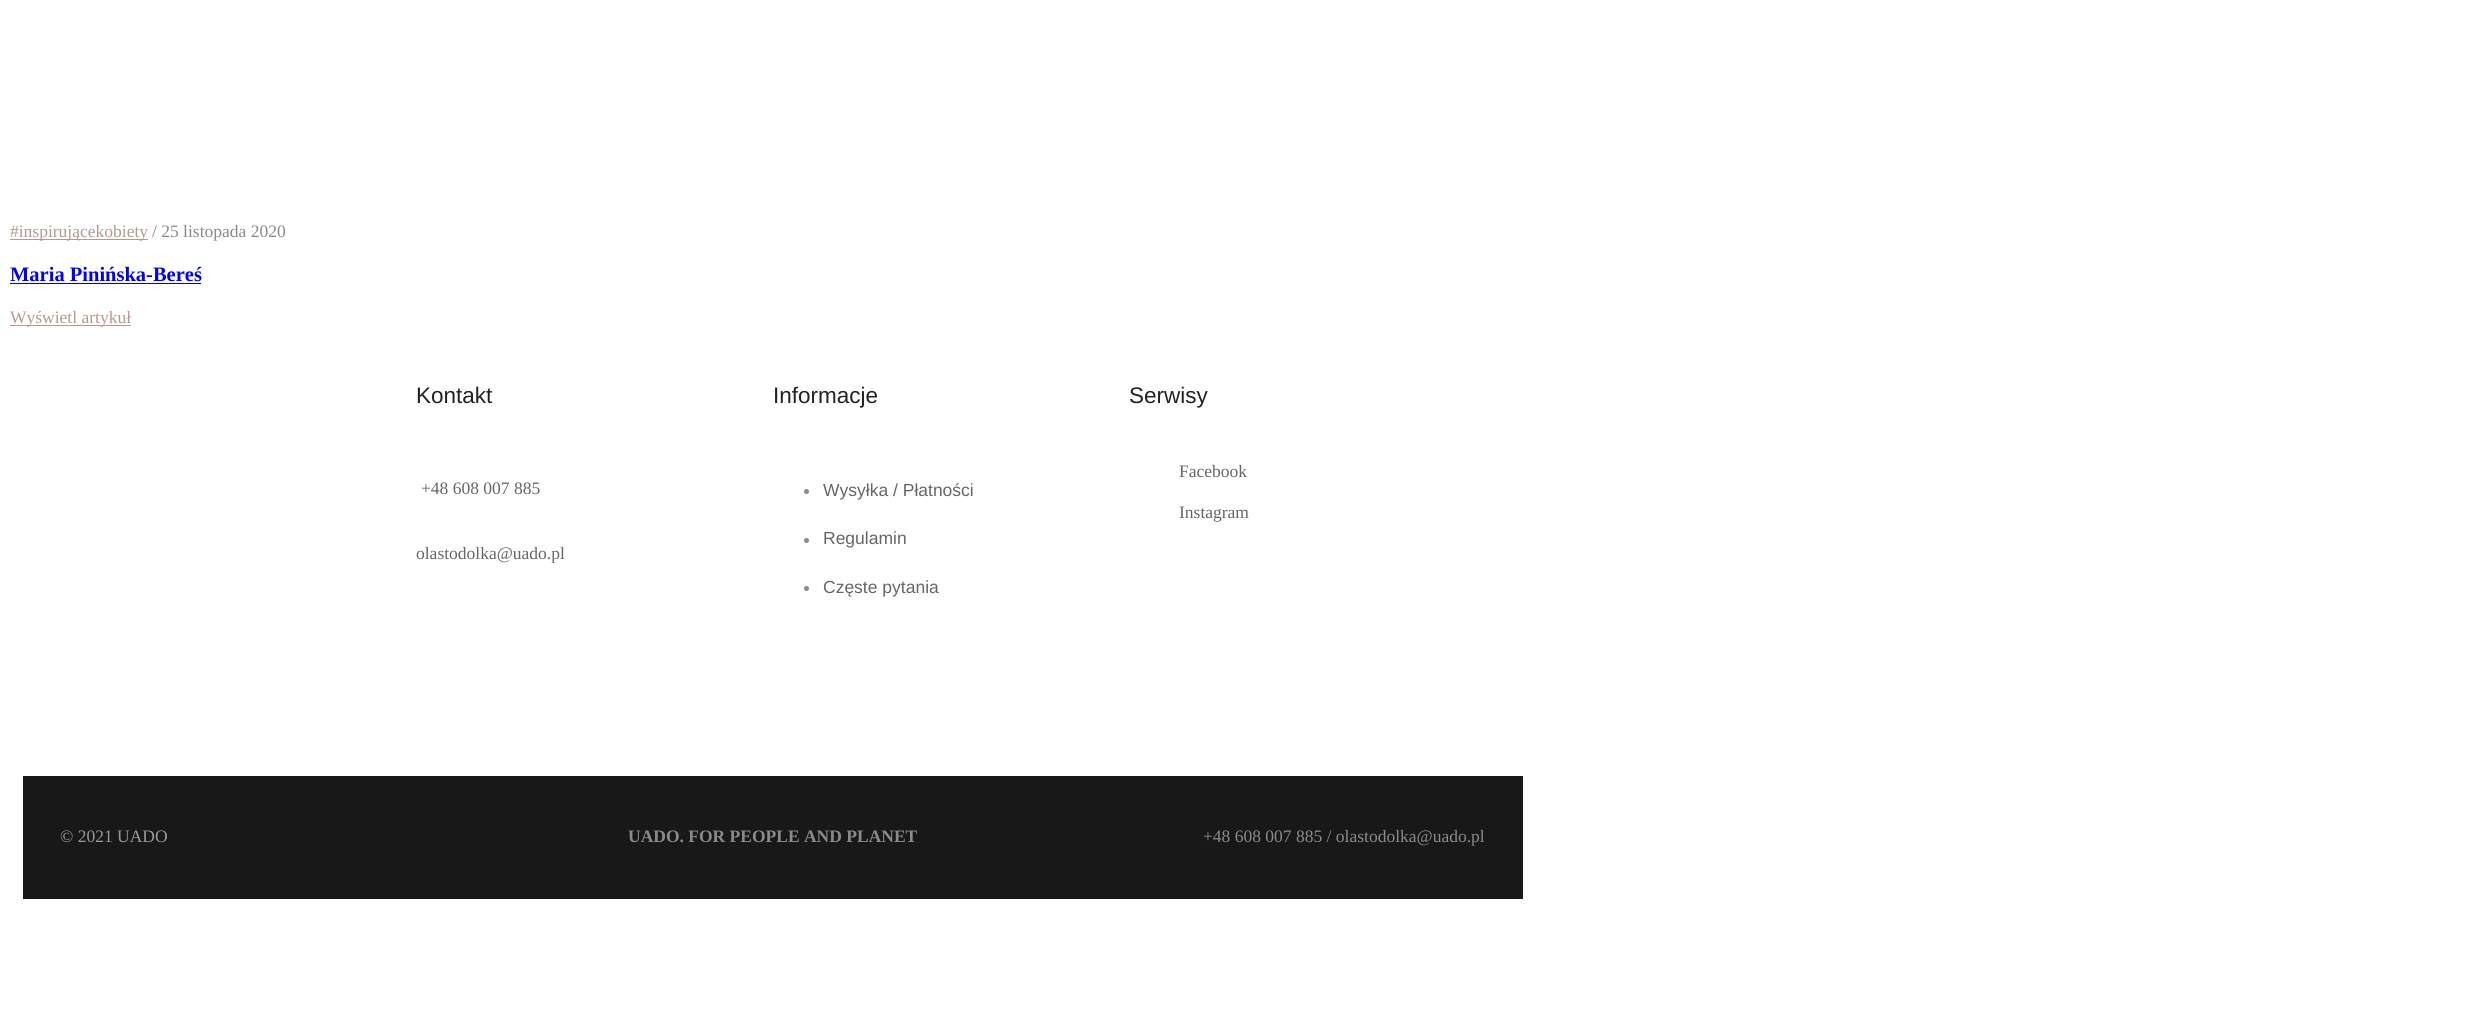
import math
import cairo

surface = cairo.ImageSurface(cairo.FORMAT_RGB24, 2483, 1025)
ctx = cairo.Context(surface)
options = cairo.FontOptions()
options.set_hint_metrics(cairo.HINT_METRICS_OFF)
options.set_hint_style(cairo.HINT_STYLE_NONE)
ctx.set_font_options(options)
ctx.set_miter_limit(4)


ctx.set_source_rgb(1, 1, 1)
ctx.paint()
ctx.set_source_rgb(0.718, 0.596, 0.569)
ctx.rectangle(10, 239, 138, 1)
ctx.fill()
ctx.select_font_face("Liberation Serif")
ctx.set_font_size(17.5)
ctx.move_to(10, 237)
ctx.show_text("#inspirującekobiety")
ctx.set_source_rgb(0.541, 0.541, 0.541)
ctx.move_to(152, 237)
ctx.show_text("/ 25 listopada 2020")
ctx.select_font_face("Liberation Serif", cairo.FONT_SLANT_NORMAL, cairo.FONT_WEIGHT_BOLD)
ctx.set_font_size(20.5)
ctx.set_source_rgb(0, 0, 0.933)
ctx.move_to(10, 281)
ctx.show_text("Maria Pinińska-Bereś")
ctx.rectangle(10, 283, 191, 1)
ctx.fill()
ctx.set_source_rgb(0.718, 0.596, 0.569)
ctx.rectangle(10, 325, 121, 1)
ctx.fill()
ctx.select_font_face("Liberation Serif")
ctx.set_font_size(17.5)
ctx.move_to(10, 323)
ctx.show_text("Wyświetl artykuł")
ctx.select_font_face("Liberation Sans")
ctx.set_font_size(22.5)
ctx.set_source_rgb(0.133, 0.133, 0.133)
ctx.move_to(416, 403)
ctx.show_text("Kontakt")
ctx.select_font_face("Liberation Serif")
ctx.set_font_size(17.5)
ctx.set_source_rgb(0.4, 0.4, 0.4)
ctx.move_to(421, 494)
ctx.show_text("+48 608 007 885")
ctx.move_to(416, 559)
ctx.show_text("olastodolka@uado.pl")
ctx.select_font_face("Liberation Sans")
ctx.set_font_size(22.5)
ctx.set_source_rgb(0.133, 0.133, 0.133)
ctx.move_to(773, 403)
ctx.show_text("Informacje")
ctx.set_source_rgb(0.541, 0.541, 0.541)
ctx.new_path()
ctx.arc(806.5, 491.5, 2.5, 0, 2 * math.pi)
ctx.fill()
ctx.set_font_size(17.5)
ctx.set_source_rgb(0.4, 0.4, 0.4)
ctx.move_to(823, 496)
ctx.show_text("Wysyłka / Płatności")
ctx.set_source_rgb(0.541, 0.541, 0.541)
ctx.new_path()
ctx.arc(806.5, 540.5, 2.5, 0, 2 * math.pi)
ctx.fill()
ctx.set_source_rgb(0.4, 0.4, 0.4)
ctx.move_to(823, 544)
ctx.show_text("Regulamin")
ctx.set_source_rgb(0.541, 0.541, 0.541)
ctx.new_path()
ctx.arc(806.5, 588.5, 2.5, 0, 2 * math.pi)
ctx.fill()
ctx.set_source_rgb(0.4, 0.4, 0.4)
ctx.move_to(823, 593)
ctx.show_text("Częste pytania")
ctx.set_font_size(22.5)
ctx.set_source_rgb(0.133, 0.133, 0.133)
ctx.move_to(1129, 403)
ctx.show_text("Serwisy")
ctx.select_font_face("Liberation Serif")
ctx.set_font_size(17.5)
ctx.set_source_rgb(0.4, 0.4, 0.4)
ctx.move_to(1179, 477)
ctx.show_text("Facebook")
ctx.move_to(1179, 518)
ctx.show_text("Instagram")
ctx.set_source_rgb(0.094, 0.094, 0.094)
ctx.rectangle(23, 776, 1500, 123)
ctx.fill()
ctx.set_source_rgb(0.6, 0.6, 0.6)
ctx.move_to(60, 842)
ctx.show_text("© 2021 UADO")
ctx.select_font_face("Liberation Serif", cairo.FONT_SLANT_NORMAL, cairo.FONT_WEIGHT_BOLD)
ctx.set_source_rgb(0.541, 0.541, 0.541)
ctx.move_to(628, 842)
ctx.show_text("UADO. FOR PEOPLE AND PLANET")
ctx.select_font_face("Liberation Serif")
ctx.move_to(1203, 842)
ctx.show_text("+48 608 007 885 / olastodolka@uado.pl")
surface.write_to_png("page.png")
